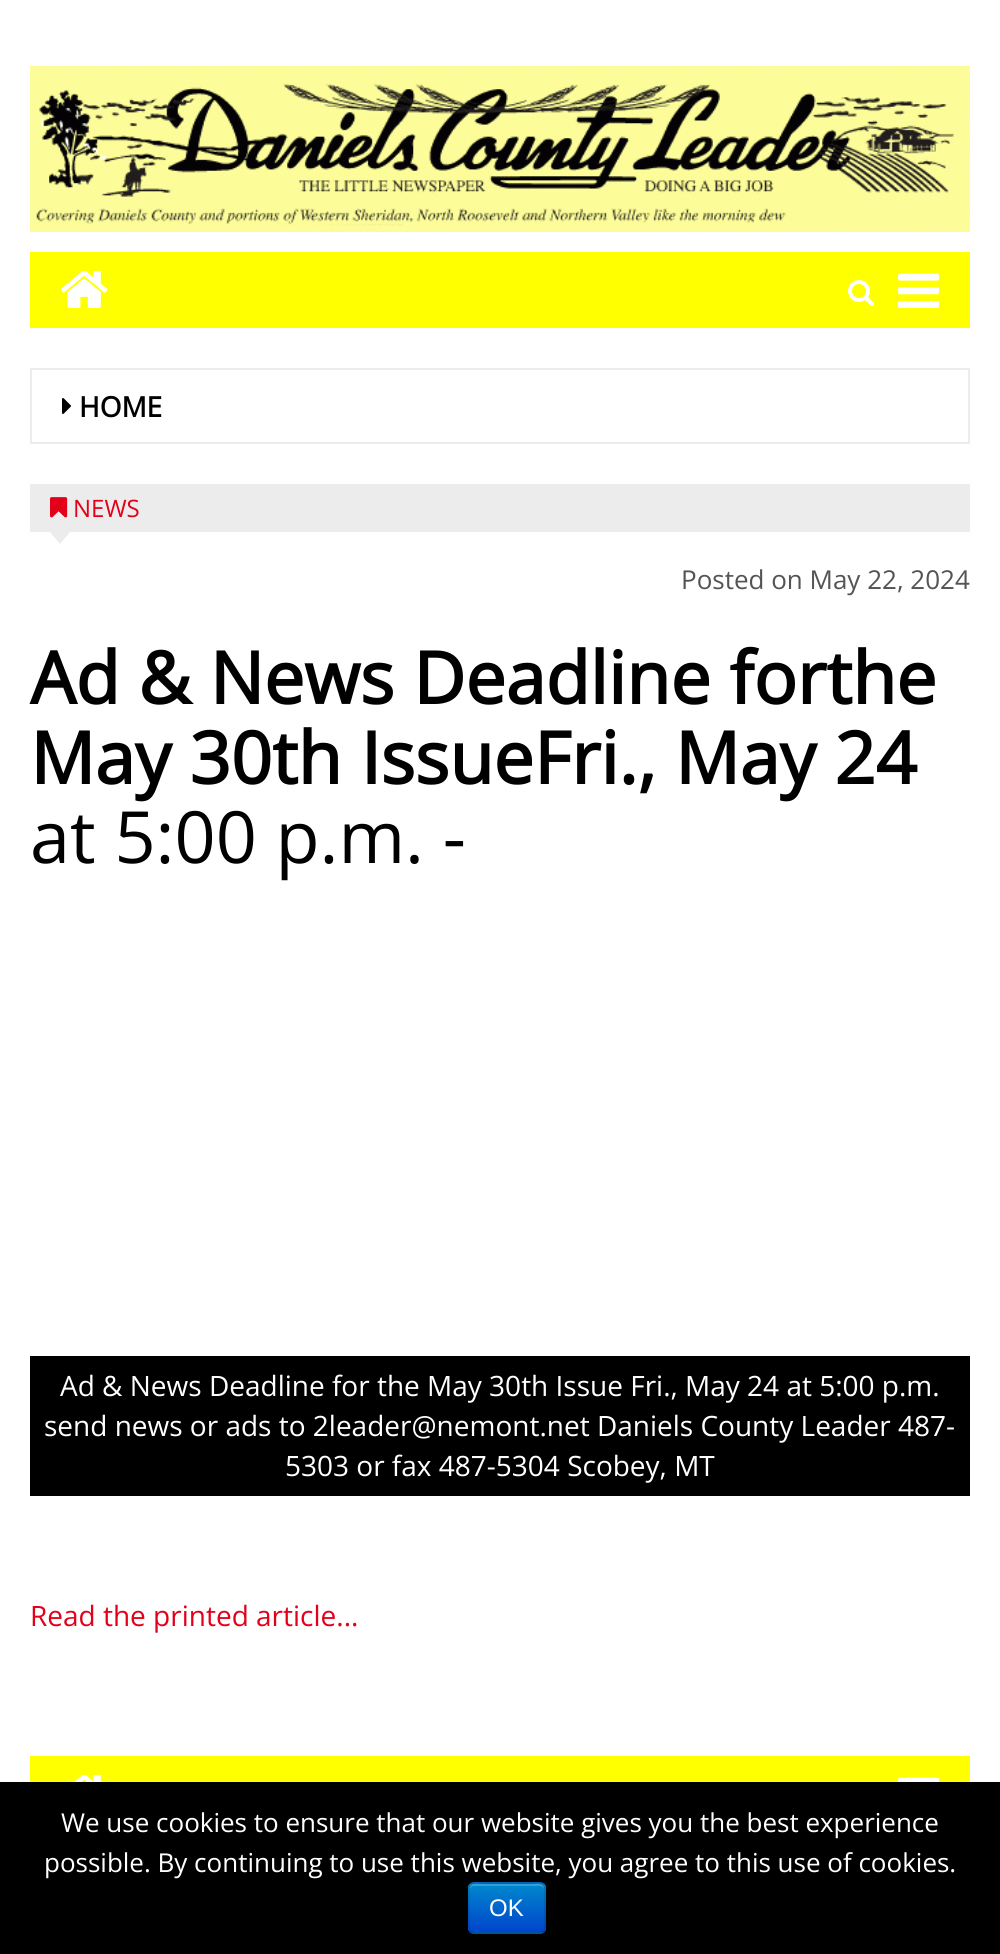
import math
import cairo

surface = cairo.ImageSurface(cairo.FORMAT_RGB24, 1000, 1954)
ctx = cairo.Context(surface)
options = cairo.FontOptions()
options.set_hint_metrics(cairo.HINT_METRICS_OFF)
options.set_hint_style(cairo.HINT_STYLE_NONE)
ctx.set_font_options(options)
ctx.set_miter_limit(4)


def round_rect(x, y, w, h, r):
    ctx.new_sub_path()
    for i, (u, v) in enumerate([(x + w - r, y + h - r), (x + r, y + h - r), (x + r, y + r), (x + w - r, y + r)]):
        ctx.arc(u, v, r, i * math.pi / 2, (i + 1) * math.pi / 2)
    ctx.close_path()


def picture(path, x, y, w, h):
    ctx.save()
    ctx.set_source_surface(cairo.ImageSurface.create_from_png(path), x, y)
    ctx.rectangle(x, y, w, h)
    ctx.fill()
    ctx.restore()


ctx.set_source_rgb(1, 1, 1)
ctx.paint()
ctx.set_source_rgb(0.988, 0.992, 0.604)
ctx.rectangle(30, 66, 940, 166)
ctx.fill()
picture("img1.png", 33, 69, 937, 163)
ctx.set_source_rgb(1, 1, 0)
ctx.rectangle(30, 252, 940, 76)
ctx.fill()
picture("img2.png", 60, 270, 48, 38)
picture("img3.png", 848, 280, 26, 26)
picture("img4.png", 898, 273, 42, 35)
ctx.rectangle(31, 369, 938, 74)
ctx.set_source_rgb(0.925, 0.925, 0.925)
ctx.stroke()
picture("img5.png", 62, 398, 9, 16)
ctx.select_font_face("Open Sans", cairo.FONT_SLANT_NORMAL, cairo.FONT_WEIGHT_BOLD)
ctx.set_font_size(28)
ctx.set_source_rgb(0, 0, 0)
ctx.move_to(79, 417)
ctx.show_text("HOME")
ctx.set_source_rgb(0.925, 0.925, 0.925)
ctx.rectangle(30, 484, 940, 48)
ctx.fill()
picture("img6.png", 50, 497, 18, 21)
ctx.select_font_face("Open Sans")
ctx.set_font_size(24)
ctx.set_source_rgb(0.886, 0, 0.102)
ctx.move_to(73, 517)
ctx.show_text("NEWS")
ctx.set_source_rgb(0.925, 0.925, 0.925)
ctx.new_path()
ctx.move_to(50, 532)
ctx.line_to(70, 532)
ctx.line_to(60, 544)
ctx.close_path()
ctx.fill()
ctx.set_font_size(26)
ctx.set_source_rgb(0.329, 0.329, 0.329)
ctx.move_to(681, 589)
ctx.show_text("Posted on May 22, 2024")
ctx.select_font_face("Open Sans", cairo.FONT_SLANT_NORMAL, cairo.FONT_WEIGHT_BOLD)
ctx.set_font_size(72)
ctx.set_source_rgb(0, 0, 0)
ctx.move_to(30, 704)
ctx.show_text("Ad & News Deadline forthe")
ctx.move_to(30, 784)
ctx.show_text("May 30th IssueFri., May 24")
ctx.select_font_face("Open Sans")
ctx.move_to(30, 863)
ctx.show_text("at 5:00 p.m. -")
ctx.rectangle(30, 1356, 940, 140)
ctx.fill()
ctx.set_font_size(28)
ctx.set_source_rgb(1, 1, 1)
ctx.move_to(60, 1396)
ctx.show_text("Ad & News Deadline for the May 30th Issue Fri., May 24 at 5:00 p.m.")
ctx.move_to(44, 1436)
ctx.show_text("send news or ads to 2leader@nemont.net Daniels County Leader 487-")
ctx.move_to(285, 1476)
ctx.show_text("5303 or fax 487-5304 Scobey, MT")
ctx.set_source_rgb(0.886, 0, 0.102)
ctx.move_to(30, 1626)
ctx.show_text("Read the printed article...")
ctx.set_source_rgb(1, 1, 0)
ctx.rectangle(30, 1756, 940, 26)
ctx.fill()
picture("img7.png", 74, 1774, 27, 8)
picture("img8.png", 898, 1777, 42, 5)
ctx.set_source_rgb(0, 0, 0)
ctx.rectangle(0, 1782, 1000, 172)
ctx.fill()
ctx.set_font_size(26)
ctx.set_source_rgb(1, 1, 1)
ctx.move_to(61, 1832)
ctx.show_text("We use cookies to ensure that our website gives you the best experience")
ctx.move_to(44, 1872)
ctx.show_text("possible. By continuing to use this website, you agree to this use of cookies.")
ctx.set_source_rgb(0, 0.427, 0.8)
round_rect(468, 1882, 78, 52, 6)
ctx.fill()
ctx.save()
round_rect(468, 1882, 78, 52, 6)
ctx.clip()
gradient = cairo.LinearGradient(507, 1884, 507, 1932)
gradient.add_color_stop_rgba(0, 0, 0.533, 0.8, 1)
gradient.add_color_stop_rgba(1, 0, 0.267, 0.8, 1)
ctx.set_source(gradient)
ctx.rectangle(468, 1884, 78, 48)
ctx.fill()
ctx.restore()
ctx.set_source_rgba(1, 1, 1, 0.2)
ctx.new_path()
ctx.move_to(474, 1886)
ctx.line_to(540, 1886)
ctx.curve_to(542, 1886, 544, 1888, 544, 1890)
ctx.curve_to(544, 1881, 537, 1884, 529, 1884)
ctx.line_to(485, 1884)
ctx.curve_to(477, 1884, 470, 1881, 470, 1890)
ctx.curve_to(470, 1888, 472, 1886, 474, 1886)
ctx.close_path()
ctx.fill()
ctx.new_path()
ctx.move_to(543.5, 1931.5)
ctx.curve_to(542.5, 1932.5, 541.5, 1933, 540, 1933)
ctx.line_to(474, 1933)
ctx.curve_to(472.5, 1933, 471.5, 1932.5, 470.5, 1931.5)
ctx.set_source_rgba(0, 0, 0, 0.25)
ctx.stroke()
ctx.new_path()
ctx.move_to(470.5, 1931.5)
ctx.curve_to(469.5, 1930.5, 469, 1929.5, 469, 1928)
ctx.line_to(469, 1888)
ctx.curve_to(469, 1886.5, 469.5, 1885.5, 470.5, 1884.5)
ctx.curve_to(471.5, 1883.5, 472.5, 1883, 474, 1883)
ctx.line_to(540, 1883)
ctx.curve_to(541.5, 1883, 542.5, 1883.5, 543.5, 1884.5)
ctx.curve_to(544.5, 1885.5, 545, 1886.5, 545, 1888)
ctx.line_to(545, 1928)
ctx.curve_to(545, 1929.5, 544.5, 1930.5, 543.5, 1931.5)
ctx.set_source_rgba(0, 0, 0, 0.1)
ctx.stroke()
ctx.select_font_face("Liberation Sans")
ctx.set_font_size(24)
ctx.set_source_rgb(1, 1, 1)
ctx.move_to(489, 1916)
ctx.show_text("OK")
surface.write_to_png("page.png")
